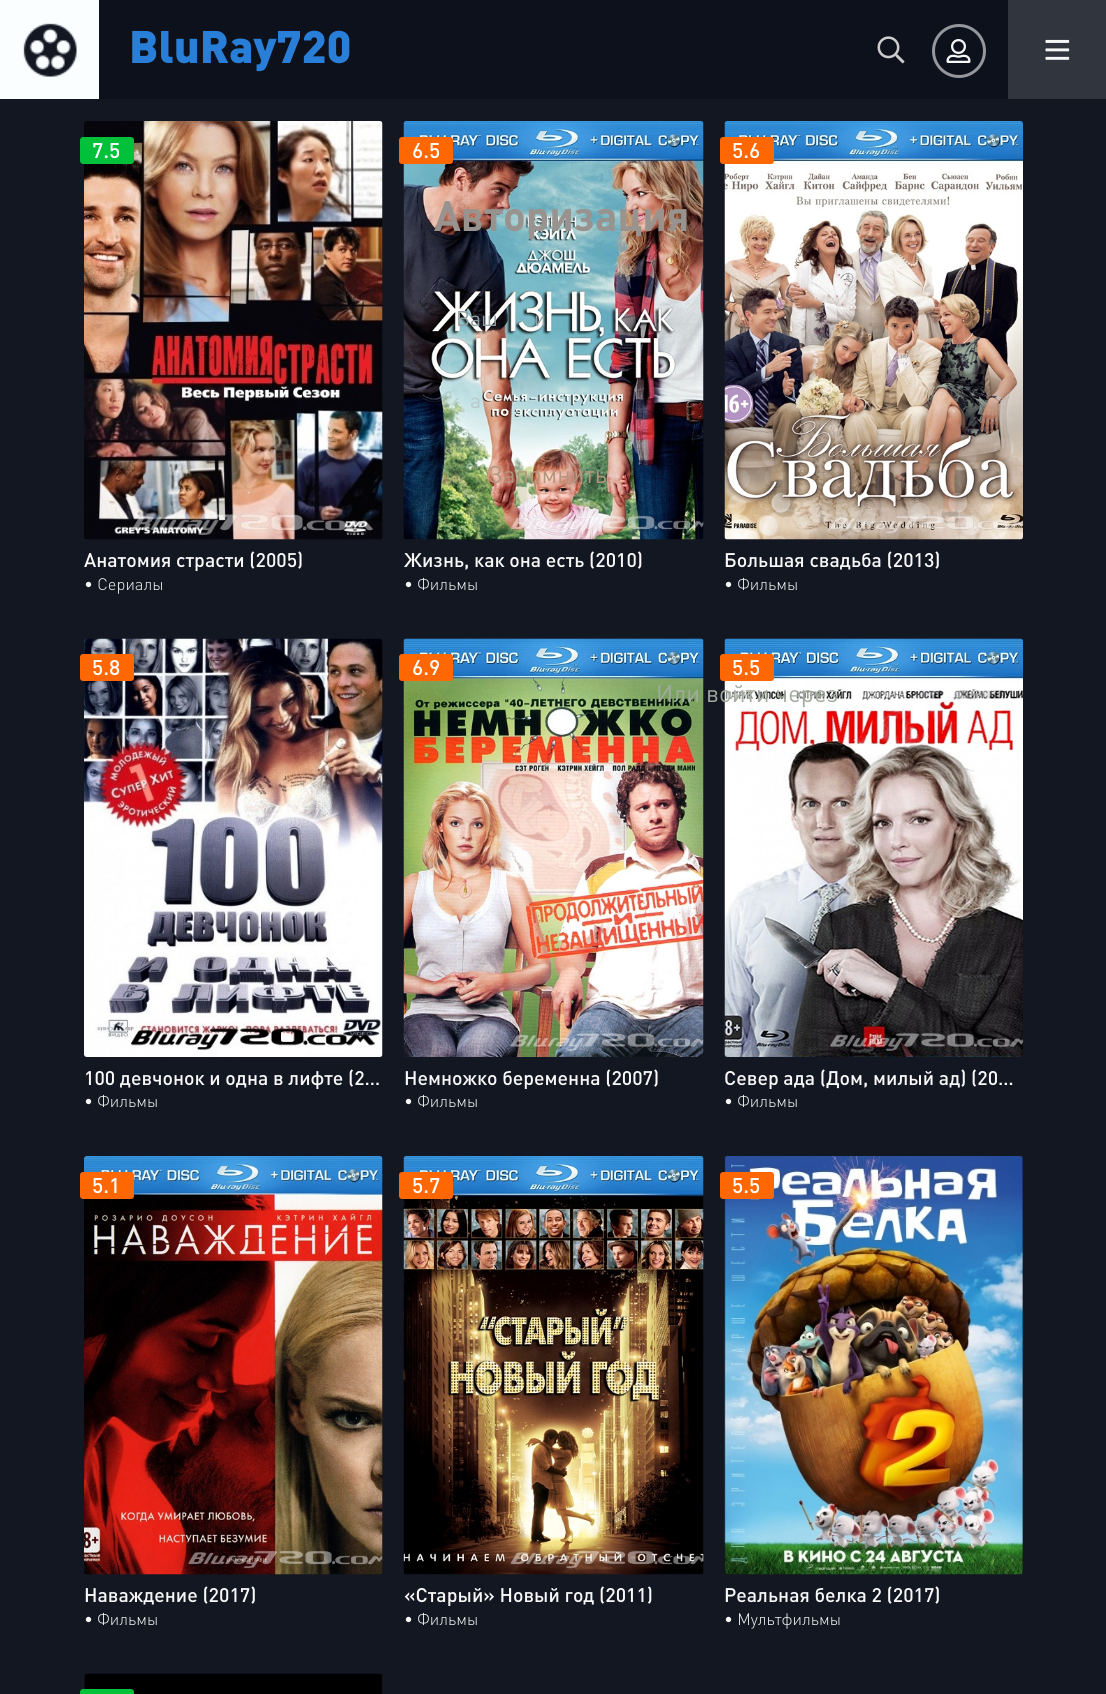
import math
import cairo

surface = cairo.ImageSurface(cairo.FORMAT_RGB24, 1106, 1694)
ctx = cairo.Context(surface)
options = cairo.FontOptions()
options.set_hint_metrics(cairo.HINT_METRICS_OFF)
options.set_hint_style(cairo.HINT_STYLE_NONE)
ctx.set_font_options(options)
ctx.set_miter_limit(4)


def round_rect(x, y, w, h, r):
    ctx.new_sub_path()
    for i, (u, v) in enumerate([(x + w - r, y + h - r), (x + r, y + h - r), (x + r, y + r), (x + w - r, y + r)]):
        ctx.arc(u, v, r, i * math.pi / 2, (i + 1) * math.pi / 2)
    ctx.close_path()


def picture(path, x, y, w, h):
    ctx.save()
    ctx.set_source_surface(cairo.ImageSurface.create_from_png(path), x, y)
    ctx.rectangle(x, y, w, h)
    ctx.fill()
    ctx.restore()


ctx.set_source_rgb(0.075, 0.09, 0.133)
ctx.paint()
ctx.set_source_rgb(0.051, 0.067, 0.11)
ctx.rectangle(99, 0, 909, 99)
ctx.fill()
ctx.set_source_rgb(0.98, 0.996, 1)
ctx.rectangle(0, 0, 99, 99)
ctx.fill()
picture("img1.png", 23, 23, 54, 54)
ctx.select_font_face("DIN Black")
ctx.set_font_size(45)
ctx.set_source_rgb(0.161, 0.498, 0.843)
ctx.move_to(129, 63)
ctx.show_text("BluRay720")
picture("img2.png", 877, 36, 28, 28)
ctx.arc(959, 51, 25.5, 0, 2 * math.pi)
ctx.set_source_rgb(0.584, 0.592, 0.616)
ctx.set_line_width(3)
ctx.stroke()
picture("img3.png", 946, 39, 25, 24)
ctx.set_source_rgb(0.192, 0.208, 0.243)
ctx.rectangle(1008, 0, 98, 99)
ctx.fill()
picture("img4.png", 1045, 39, 25, 21)
picture("img6.png", 403, 121, 301, 419)
ctx.select_font_face("DIN", cairo.FONT_SLANT_NORMAL, cairo.FONT_WEIGHT_BOLD)
ctx.set_font_size(42)
ctx.set_source_rgb(0.596, 0.576, 0.557)
ctx.move_to(434, 231)
ctx.show_text("Авторизация")
ctx.select_font_face("DIN")
ctx.set_font_size(21)
ctx.set_source_rgb(0.553, 0.627, 0.643)
ctx.move_to(456, 326)
ctx.show_text("Ваш")
ctx.move_to(534, 326)
ctx.show_text("и")
ctx.set_source_rgb(0.722, 0.788, 0.784)
ctx.move_to(470, 408)
ctx.show_text("а")
ctx.set_font_size(24)
ctx.set_source_rgb(0.698, 0.584, 0.486)
ctx.move_to(488, 483)
ctx.show_text("Запомнить")
picture("img9.png", 403, 638, 301, 419)
picture("img10.png", 724, 638, 299, 419)
ctx.set_source_rgb(0.635, 0.675, 0.62)
ctx.move_to(656, 702)
ctx.show_text("Или войти через")
picture("img5.png", 84, 121, 299, 419)
ctx.set_source_rgb(0.004, 0.753, 0.227)
round_rect(80, 137, 54, 27, 3)
ctx.fill()
ctx.select_font_face("DIN Medium")
ctx.set_font_size(21)
ctx.set_source_rgb(1, 1, 1)
ctx.move_to(92, 158)
ctx.show_text("7.5")
ctx.set_font_size(19.5)
ctx.set_source_rgb(0.969, 0.969, 0.969)
ctx.move_to(84, 567)
ctx.show_text("Анатомия страсти (2005)")
ctx.select_font_face("DIN Light")
ctx.set_font_size(16.5)
ctx.move_to(84, 590)
ctx.show_text("• Сериалы")
ctx.set_source_rgb(1, 0.404, 0.008)
round_rect(399, 137, 54, 27, 3)
ctx.fill()
ctx.select_font_face("DIN Medium")
ctx.set_font_size(21)
ctx.set_source_rgb(1, 1, 1)
ctx.move_to(412, 158)
ctx.show_text("6.5")
ctx.set_font_size(19.5)
ctx.set_source_rgb(0.969, 0.969, 0.969)
ctx.move_to(404, 567)
ctx.show_text("Жизнь, как она есть (2010)")
ctx.select_font_face("DIN Light")
ctx.set_font_size(16.5)
ctx.move_to(404, 590)
ctx.show_text("• Фильмы")
picture("img7.png", 724, 121, 299, 419)
ctx.set_source_rgb(1, 0.404, 0.008)
round_rect(720, 137, 54, 27, 3)
ctx.fill()
ctx.select_font_face("DIN Medium")
ctx.set_font_size(21)
ctx.set_source_rgb(1, 1, 1)
ctx.move_to(732, 158)
ctx.show_text("5.6")
ctx.set_font_size(19.5)
ctx.set_source_rgb(0.969, 0.969, 0.969)
ctx.move_to(724, 567)
ctx.show_text("Большая свадьба (2013)")
ctx.select_font_face("DIN Light")
ctx.set_font_size(16.5)
ctx.move_to(724, 590)
ctx.show_text("• Фильмы")
picture("img8.png", 84, 638, 299, 419)
ctx.set_source_rgb(1, 0.404, 0.008)
round_rect(80, 654, 54, 27, 3)
ctx.fill()
ctx.select_font_face("DIN Medium")
ctx.set_font_size(21)
ctx.set_source_rgb(1, 1, 1)
ctx.move_to(92, 675)
ctx.show_text("5.8")
ctx.set_font_size(19.5)
ctx.set_source_rgb(0.969, 0.969, 0.969)
ctx.move_to(84, 1085)
ctx.show_text("100 девчонок и одна в лифте (2…")
ctx.select_font_face("DIN Light")
ctx.set_font_size(16.5)
ctx.move_to(84, 1107)
ctx.show_text("• Фильмы")
ctx.set_source_rgb(1, 0.404, 0.008)
round_rect(399, 654, 54, 27, 3)
ctx.fill()
ctx.select_font_face("DIN Medium")
ctx.set_font_size(21)
ctx.set_source_rgb(1, 1, 1)
ctx.move_to(412, 675)
ctx.show_text("6.9")
ctx.set_font_size(19.5)
ctx.set_source_rgb(0.969, 0.969, 0.969)
ctx.move_to(404, 1085)
ctx.show_text("Немножко беременна (2007)")
ctx.select_font_face("DIN Light")
ctx.set_font_size(16.5)
ctx.move_to(404, 1107)
ctx.show_text("• Фильмы")
ctx.set_source_rgb(1, 0.404, 0.008)
round_rect(720, 654, 54, 27, 3)
ctx.fill()
ctx.select_font_face("DIN Medium")
ctx.set_font_size(21)
ctx.set_source_rgb(1, 1, 1)
ctx.move_to(732, 675)
ctx.show_text("5.5")
ctx.set_font_size(19.5)
ctx.set_source_rgb(0.969, 0.969, 0.969)
ctx.move_to(724, 1085)
ctx.show_text("Север ада (Дом, милый ад) (20…")
ctx.select_font_face("DIN Light")
ctx.set_font_size(16.5)
ctx.move_to(724, 1107)
ctx.show_text("• Фильмы")
picture("img11.png", 84, 1156, 299, 419)
ctx.set_source_rgb(1, 0.404, 0.008)
round_rect(80, 1172, 54, 27, 3)
ctx.fill()
ctx.select_font_face("DIN Medium")
ctx.set_font_size(21)
ctx.set_source_rgb(1, 1, 1)
ctx.move_to(92, 1193)
ctx.show_text("5.1")
ctx.set_font_size(19.5)
ctx.set_source_rgb(0.969, 0.969, 0.969)
ctx.move_to(84, 1602)
ctx.show_text("Наваждение (2017)")
ctx.select_font_face("DIN Light")
ctx.set_font_size(16.5)
ctx.move_to(84, 1625)
ctx.show_text("• Фильмы")
picture("img12.png", 403, 1156, 301, 419)
ctx.set_source_rgb(1, 0.404, 0.008)
round_rect(399, 1172, 54, 27, 3)
ctx.fill()
ctx.select_font_face("DIN Medium")
ctx.set_font_size(21)
ctx.set_source_rgb(1, 1, 1)
ctx.move_to(412, 1193)
ctx.show_text("5.7")
ctx.set_font_size(19.5)
ctx.set_source_rgb(0.969, 0.969, 0.969)
ctx.move_to(404, 1602)
ctx.show_text("«Старый» Новый год (2011)")
ctx.select_font_face("DIN Light")
ctx.set_font_size(16.5)
ctx.move_to(404, 1625)
ctx.show_text("• Фильмы")
picture("img13.png", 724, 1156, 299, 419)
ctx.set_source_rgb(1, 0.404, 0.008)
round_rect(720, 1172, 54, 27, 3)
ctx.fill()
ctx.select_font_face("DIN Medium")
ctx.set_font_size(21)
ctx.set_source_rgb(1, 1, 1)
ctx.move_to(732, 1193)
ctx.show_text("5.5")
ctx.set_font_size(19.5)
ctx.set_source_rgb(0.969, 0.969, 0.969)
ctx.move_to(724, 1602)
ctx.show_text("Реальная белка 2 (2017)")
ctx.select_font_face("DIN Light")
ctx.set_font_size(16.5)
ctx.move_to(724, 1625)
ctx.show_text("• Мультфильмы")
picture("img14.png", 84, 1673, 299, 21)
ctx.set_source_rgb(0.004, 0.753, 0.227)
round_rect(80, 1689, 54, 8, 3)
ctx.fill()
surface.write_to_png("page.png")
